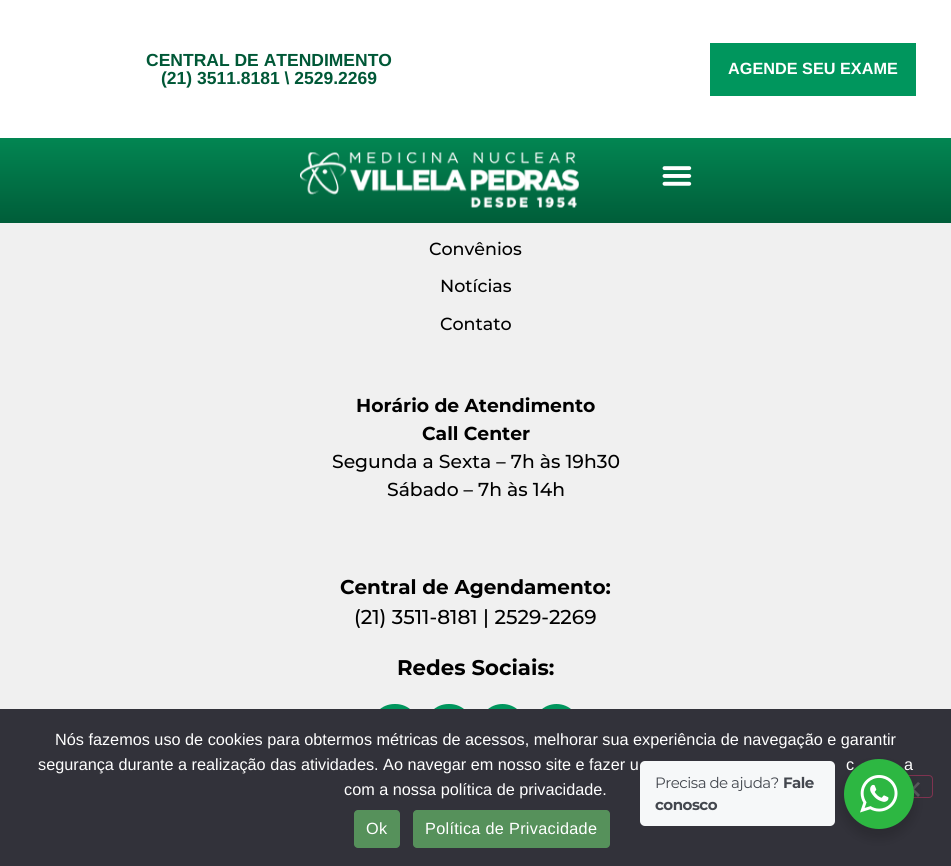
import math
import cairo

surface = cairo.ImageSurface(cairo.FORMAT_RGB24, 951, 866)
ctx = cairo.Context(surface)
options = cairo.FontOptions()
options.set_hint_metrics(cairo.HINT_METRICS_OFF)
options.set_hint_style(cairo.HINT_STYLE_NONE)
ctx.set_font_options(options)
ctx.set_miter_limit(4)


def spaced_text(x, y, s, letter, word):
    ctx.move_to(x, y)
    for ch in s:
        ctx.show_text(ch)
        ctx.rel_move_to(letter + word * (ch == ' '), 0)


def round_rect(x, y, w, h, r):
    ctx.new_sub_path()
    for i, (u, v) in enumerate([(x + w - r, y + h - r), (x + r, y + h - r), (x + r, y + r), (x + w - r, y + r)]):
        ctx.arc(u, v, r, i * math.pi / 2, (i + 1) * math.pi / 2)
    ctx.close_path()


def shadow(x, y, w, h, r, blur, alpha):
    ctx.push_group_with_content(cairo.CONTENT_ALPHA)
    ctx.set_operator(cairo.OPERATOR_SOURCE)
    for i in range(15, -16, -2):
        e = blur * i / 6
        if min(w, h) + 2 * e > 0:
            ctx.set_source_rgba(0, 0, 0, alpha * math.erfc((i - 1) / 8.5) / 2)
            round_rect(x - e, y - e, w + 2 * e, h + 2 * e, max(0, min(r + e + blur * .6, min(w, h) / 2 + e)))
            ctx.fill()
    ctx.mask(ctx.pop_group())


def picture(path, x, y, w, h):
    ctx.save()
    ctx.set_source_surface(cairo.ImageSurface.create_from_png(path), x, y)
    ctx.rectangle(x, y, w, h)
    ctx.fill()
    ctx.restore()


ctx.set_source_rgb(0.941, 0.941, 0.941)
ctx.paint()
ctx.set_source_rgb(1, 1, 1)
ctx.rectangle(0, 0, 951, 138)
ctx.fill()
ctx.select_font_face("Liberation Sans", cairo.FONT_SLANT_NORMAL, cairo.FONT_WEIGHT_BOLD)
ctx.set_font_size(17.5)
ctx.set_source_rgb(0, 0.345, 0.216)
ctx.move_to(146, 66)
ctx.show_text("CENTRAL DE ATENDIMENTO")
ctx.move_to(161, 84)
ctx.show_text("(21) 3511.8181 \\ 2529.2269")
ctx.set_source_rgb(0, 0.588, 0.365)
ctx.rectangle(710, 43, 206, 53)
ctx.fill()
ctx.set_font_size(16.25)
ctx.set_source_rgb(1, 1, 1)
ctx.move_to(728, 74)
ctx.show_text("AGENDE SEU EXAME")
gradient = cairo.LinearGradient(476, 137, 476, 223)
gradient.add_color_stop_rgba(0.01, 0.008, 0.525, 0.322, 1)
gradient.add_color_stop_rgba(1, 0, 0.365, 0.224, 1)
ctx.set_source(gradient)
ctx.rectangle(0, 138, 951, 85)
ctx.fill()
picture("img1.png", 300, 152, 279, 56)
picture("img2.png", 662, 166, 30, 20)
ctx.select_font_face("Montserrat Medium")
ctx.set_font_size(17.5)
ctx.set_source_rgb(0, 0, 0)
ctx.move_to(429, 255)
ctx.show_text("Convênios")
ctx.move_to(440, 292)
ctx.show_text("Notícias")
ctx.move_to(440, 330)
ctx.show_text("Contato")
ctx.select_font_face("Montserrat", cairo.FONT_SLANT_NORMAL, cairo.FONT_WEIGHT_BOLD)
ctx.set_font_size(18.75)
ctx.move_to(356, 412)
ctx.show_text("Horário de Atendimento")
ctx.move_to(422, 440)
ctx.show_text("Call Center")
ctx.select_font_face("Montserrat Medium")
ctx.move_to(332, 468)
ctx.show_text("Segunda a Sexta – 7h às 19h30")
ctx.move_to(387, 496)
ctx.show_text("Sábado – 7h às 14h")
ctx.select_font_face("Montserrat", cairo.FONT_SLANT_NORMAL, cairo.FONT_WEIGHT_BOLD)
ctx.set_font_size(20)
ctx.move_to(340, 594)
ctx.show_text("Central de Agendamento:")
ctx.select_font_face("Montserrat Medium")
ctx.move_to(354, 624)
ctx.show_text("(21) 3511-8181 | 2529-2269")
ctx.select_font_face("Montserrat", cairo.FONT_SLANT_NORMAL, cairo.FONT_WEIGHT_BOLD)
ctx.set_font_size(21.25)
ctx.move_to(397, 675)
ctx.show_text("Redes Sociais:")
ctx.set_source_rgb(0, 0.588, 0.365)
round_rect(371, 704, 48, 47, 23.5)
ctx.fill()
round_rect(425, 704, 48, 47, 23.5)
ctx.fill()
ctx.arc(502.5, 727.5, 23.5, 0, 2 * math.pi)
ctx.fill()
ctx.arc(556.5, 727.5, 23.5, 0, 2 * math.pi)
ctx.fill()
ctx.set_source_rgb(0.196, 0.196, 0.227)
ctx.rectangle(0, 709, 951, 157)
ctx.fill()
round_rect(890.5, 775.5, 42, 22, 3.5)
ctx.set_source_rgb(0.498, 0.2, 0.314)
ctx.set_line_width(1)
ctx.stroke()
ctx.set_source_rgb(0.349, 0.349, 0.365)
ctx.new_path()
ctx.move_to(918, 782)
ctx.line_to(920, 783.5)
ctx.line_to(907, 797)
ctx.line_to(905, 795)
ctx.close_path()
ctx.fill()
ctx.new_path()
ctx.move_to(905, 783.5)
ctx.line_to(907, 782)
ctx.line_to(920, 795)
ctx.line_to(918, 797)
ctx.close_path()
ctx.fill()
ctx.set_source_rgb(0, 0, 0)
shadow(841, 764, 75, 75, 37.5, 5, 0.14)
ctx.set_source_rgb(0.961, 0.969, 0.976)
round_rect(640, 761, 195, 65, 5)
ctx.fill()
ctx.select_font_face("Montserrat")
ctx.set_font_size(15)
ctx.set_source_rgb(0.263, 0.278, 0.306)
spaced_text(655, 788, "Precisa de ajuda?", -0.5, 0)
ctx.select_font_face("Montserrat", cairo.FONT_SLANT_NORMAL, cairo.FONT_WEIGHT_BOLD)
spaced_text(783, 788, "Fale", -0.5, 0)
spaced_text(655, 810, "conosco", -0.5, 0)
ctx.select_font_face("Liberation Sans")
ctx.set_font_size(16.25)
ctx.set_source_rgb(1, 1, 1)
ctx.move_to(846, 770)
ctx.show_text("c")
ctx.move_to(904, 770)
ctx.show_text("a")
ctx.set_source_rgb(0.176, 0.718, 0.259)
ctx.new_path()
ctx.arc(879, 794, 35, 0, 2 * math.pi)
ctx.fill()
picture("img3.png", 860, 775, 38, 38)
ctx.set_source_rgb(1, 1, 1)
ctx.move_to(55, 745)
ctx.show_text("Nós fazemos uso de cookies para obtermos métricas de acessos, melhorar sua experiência de navegação e garantir")
ctx.move_to(38, 770)
ctx.show_text("segurança durante a realização das atividades. Ao navegar em nosso site e fazer u")
ctx.move_to(344, 795)
ctx.show_text("com a nossa política de privacidade.")
ctx.set_source_rgb(0.337, 0.569, 0.357)
round_rect(354, 810, 46, 38, 4)
ctx.fill()
ctx.set_source_rgb(1, 1, 1)
spaced_text(366, 834, "Ok", 0.3, 0)
ctx.set_source_rgb(0.337, 0.569, 0.357)
round_rect(413, 810, 197, 38, 4)
ctx.fill()
ctx.set_source_rgb(1, 1, 1)
spaced_text(425, 834, "Política de Privacidade", 0.3, 0)
surface.write_to_png("page.png")
